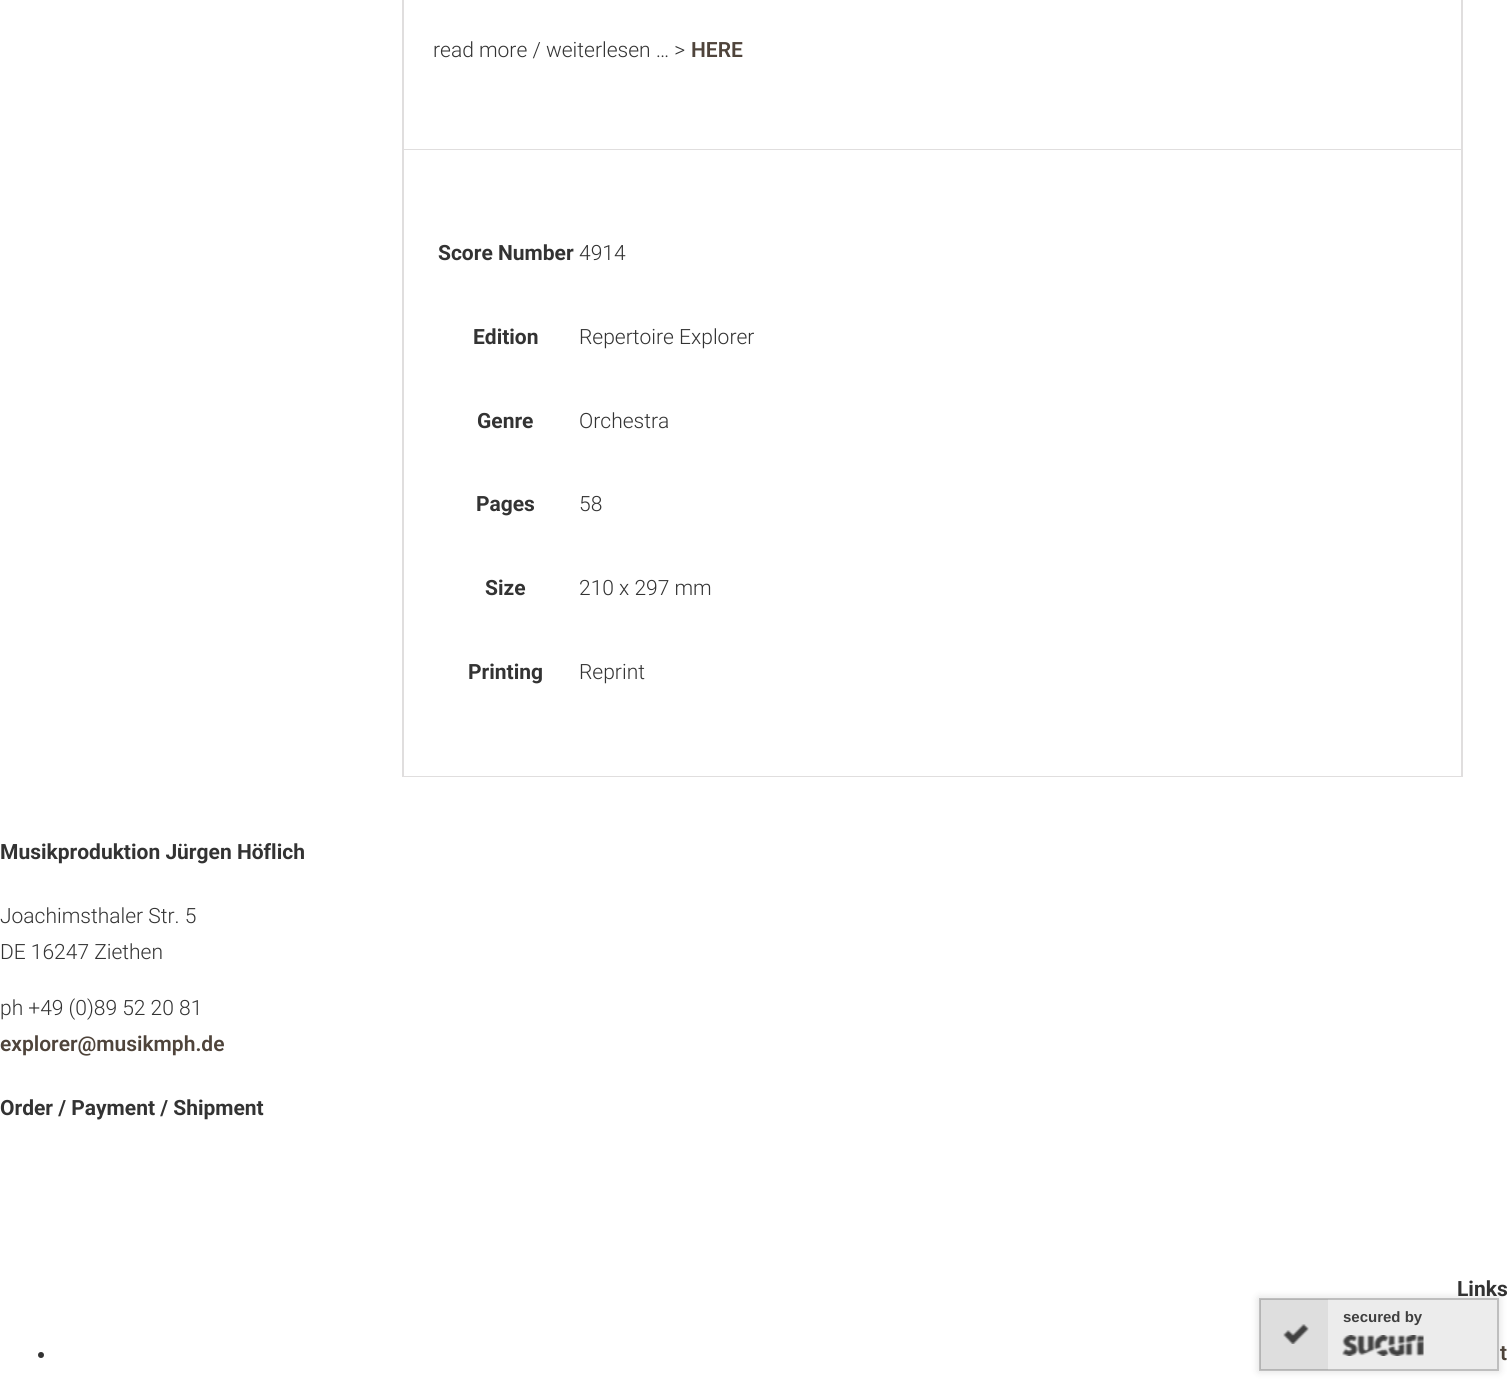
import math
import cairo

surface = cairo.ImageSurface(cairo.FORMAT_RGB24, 1507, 1380)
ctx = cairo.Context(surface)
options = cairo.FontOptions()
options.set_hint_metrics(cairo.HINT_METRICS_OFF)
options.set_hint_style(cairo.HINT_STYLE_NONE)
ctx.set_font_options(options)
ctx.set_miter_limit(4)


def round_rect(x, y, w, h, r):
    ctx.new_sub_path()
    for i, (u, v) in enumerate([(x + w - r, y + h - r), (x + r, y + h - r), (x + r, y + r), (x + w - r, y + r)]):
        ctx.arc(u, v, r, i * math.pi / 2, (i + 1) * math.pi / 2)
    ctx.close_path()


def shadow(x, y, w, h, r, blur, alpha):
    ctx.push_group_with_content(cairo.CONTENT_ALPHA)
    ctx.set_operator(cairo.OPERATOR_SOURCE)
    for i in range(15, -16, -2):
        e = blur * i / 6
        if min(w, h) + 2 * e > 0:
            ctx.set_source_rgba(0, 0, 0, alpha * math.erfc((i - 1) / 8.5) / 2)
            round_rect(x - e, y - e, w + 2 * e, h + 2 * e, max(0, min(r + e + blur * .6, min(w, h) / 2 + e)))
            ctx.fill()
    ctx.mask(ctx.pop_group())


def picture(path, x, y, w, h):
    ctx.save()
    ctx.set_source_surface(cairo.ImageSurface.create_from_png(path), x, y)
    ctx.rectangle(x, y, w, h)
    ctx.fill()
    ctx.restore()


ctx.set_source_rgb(1, 1, 1)
ctx.paint()
ctx.set_source_rgb(0.878, 0.871, 0.871)
ctx.rectangle(1461, 0, 2, 777)
ctx.fill()
ctx.rectangle(402, 149, 1061, 1)
ctx.fill()
ctx.rectangle(402, 0, 2, 150)
ctx.fill()
ctx.select_font_face("Roboto Light")
ctx.set_font_size(21)
ctx.set_source_rgb(0.2, 0.2, 0.2)
ctx.move_to(433, 57)
ctx.show_text("read more / weiterlesen … >")
ctx.select_font_face("Roboto SemiBold")
ctx.set_source_rgb(0.31, 0.267, 0.231)
ctx.move_to(691, 57)
ctx.show_text("HERE")
ctx.set_source_rgb(0.878, 0.871, 0.871)
ctx.rectangle(402, 776, 1061, 1)
ctx.fill()
ctx.rectangle(402, 150, 2, 627)
ctx.fill()
ctx.select_font_face("Roboto", cairo.FONT_SLANT_NORMAL, cairo.FONT_WEIGHT_BOLD)
ctx.set_source_rgb(0.2, 0.2, 0.2)
ctx.move_to(438, 260)
ctx.show_text("Score Number")
ctx.select_font_face("Roboto Light")
ctx.move_to(579, 260)
ctx.show_text("4914")
ctx.select_font_face("Roboto", cairo.FONT_SLANT_NORMAL, cairo.FONT_WEIGHT_BOLD)
ctx.move_to(473, 344)
ctx.show_text("Edition")
ctx.select_font_face("Roboto Light")
ctx.move_to(579, 344)
ctx.show_text("Repertoire Explorer")
ctx.select_font_face("Roboto", cairo.FONT_SLANT_NORMAL, cairo.FONT_WEIGHT_BOLD)
ctx.move_to(477, 428)
ctx.show_text("Genre")
ctx.select_font_face("Roboto Light")
ctx.move_to(579, 428)
ctx.show_text("Orchestra")
ctx.select_font_face("Roboto", cairo.FONT_SLANT_NORMAL, cairo.FONT_WEIGHT_BOLD)
ctx.move_to(476, 511)
ctx.show_text("Pages")
ctx.select_font_face("Roboto Light")
ctx.move_to(579, 511)
ctx.show_text("58")
ctx.select_font_face("Roboto", cairo.FONT_SLANT_NORMAL, cairo.FONT_WEIGHT_BOLD)
ctx.move_to(485, 595)
ctx.show_text("Size")
ctx.select_font_face("Roboto Light")
ctx.move_to(579, 595)
ctx.show_text("210 x 297 mm")
ctx.select_font_face("Roboto", cairo.FONT_SLANT_NORMAL, cairo.FONT_WEIGHT_BOLD)
ctx.move_to(468, 679)
ctx.show_text("Printing")
ctx.select_font_face("Roboto Light")
ctx.move_to(579, 679)
ctx.show_text("Reprint")
ctx.select_font_face("Roboto", cairo.FONT_SLANT_NORMAL, cairo.FONT_WEIGHT_BOLD)
ctx.move_to(0, 859)
ctx.show_text("Musikproduktion Jürgen Höflich")
ctx.select_font_face("Roboto Light")
ctx.move_to(0, 923)
ctx.show_text("Joachimsthaler Str. 5")
ctx.move_to(0, 959)
ctx.show_text("DE 16247 Ziethen")
ctx.move_to(0, 1015)
ctx.show_text("ph +49 (0)89 52 20 81")
ctx.select_font_face("Roboto SemiBold")
ctx.set_source_rgb(0.31, 0.267, 0.231)
ctx.move_to(0, 1051)
ctx.show_text("explorer@musikmph.de")
ctx.select_font_face("Roboto", cairo.FONT_SLANT_NORMAL, cairo.FONT_WEIGHT_BOLD)
ctx.set_source_rgb(0.2, 0.2, 0.2)
ctx.move_to(0, 1115)
ctx.show_text("Order / Payment / Shipment")
ctx.move_to(1457, 1296)
ctx.show_text("Links")
ctx.new_path()
ctx.arc(41, 1355, 3, 0, 2 * math.pi)
ctx.fill()
ctx.select_font_face("Roboto SemiBold")
ctx.set_source_rgb(0.31, 0.267, 0.231)
ctx.move_to(1500, 1360)
ctx.show_text("t")
ctx.set_source_rgb(0, 0, 0)
shadow(1259, 1298, 240, 73, 0, 4.5, 0.14)
ctx.set_source_rgb(0.922, 0.922, 0.922)
ctx.rectangle(1260, 1299, 238, 71)
ctx.fill_preserve()
ctx.set_source_rgb(0.745, 0.745, 0.745)
ctx.stroke()
ctx.set_source_rgba(0.251, 0.251, 0.251, 0.08)
ctx.rectangle(1260, 1299, 68, 71)
ctx.fill()
picture("img1.png", 1283, 1324, 26, 20)
ctx.select_font_face("Liberation Sans", cairo.FONT_SLANT_NORMAL, cairo.FONT_WEIGHT_BOLD)
ctx.set_font_size(15)
ctx.set_source_rgb(0.247, 0.247, 0.247)
ctx.move_to(1343, 1322)
ctx.show_text("secured by")
picture("img2.png", 1342, 1335, 82, 21)
surface.write_to_png("page.png")
